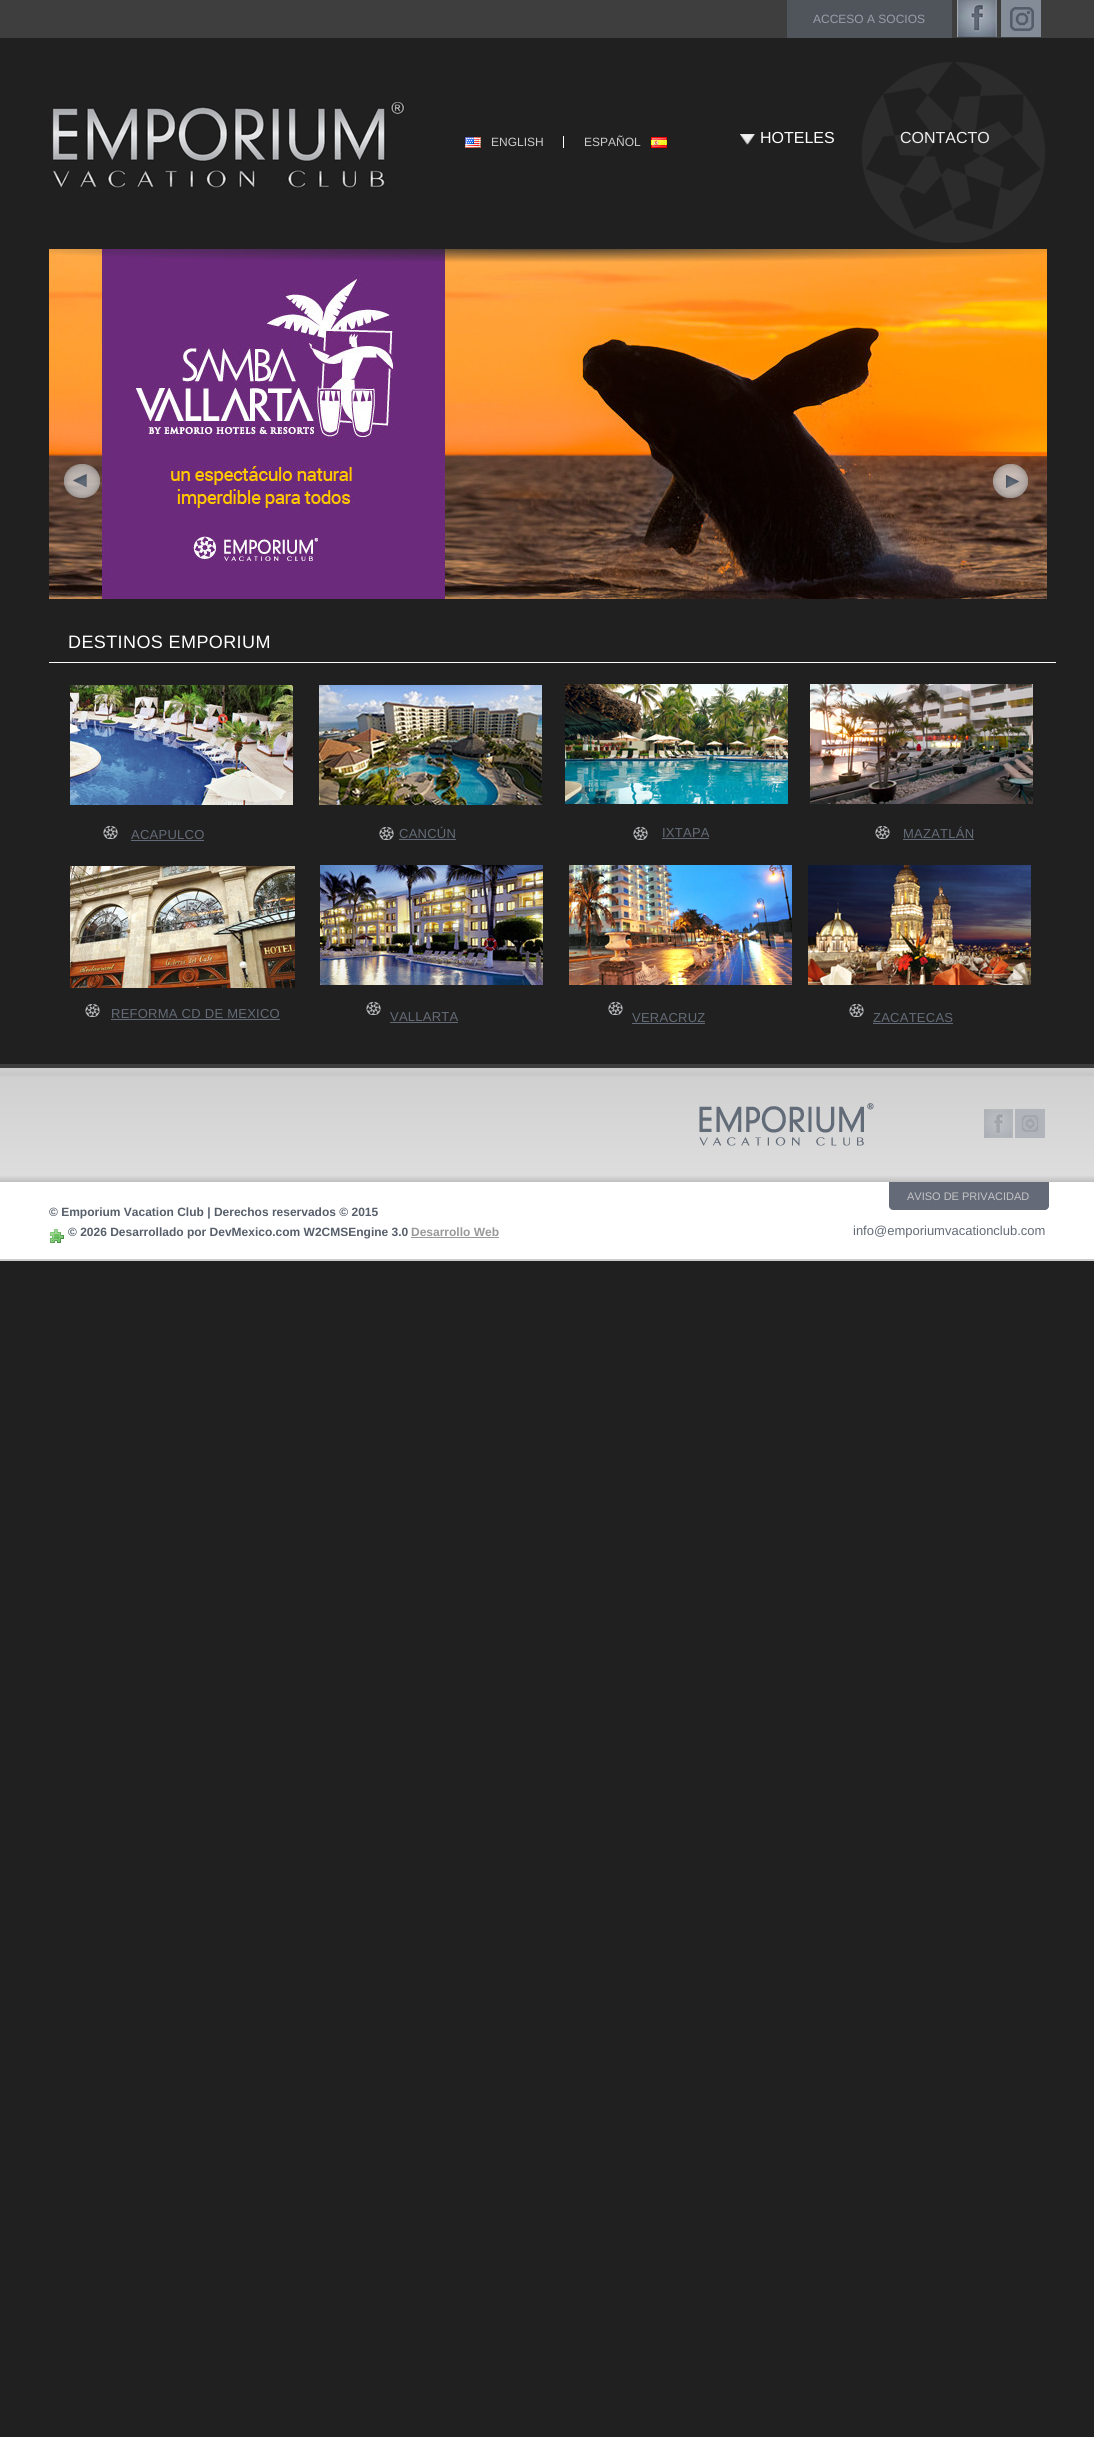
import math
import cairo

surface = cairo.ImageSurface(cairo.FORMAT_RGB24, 1094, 2437)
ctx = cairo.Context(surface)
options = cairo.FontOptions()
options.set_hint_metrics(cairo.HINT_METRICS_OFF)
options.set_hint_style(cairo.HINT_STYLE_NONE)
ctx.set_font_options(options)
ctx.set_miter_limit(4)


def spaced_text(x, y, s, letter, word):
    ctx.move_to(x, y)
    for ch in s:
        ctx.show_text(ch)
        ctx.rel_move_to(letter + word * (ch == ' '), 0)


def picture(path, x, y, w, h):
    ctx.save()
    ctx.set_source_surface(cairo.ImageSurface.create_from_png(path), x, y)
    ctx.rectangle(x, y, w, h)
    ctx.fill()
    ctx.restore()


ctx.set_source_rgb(0.125, 0.125, 0.125)
ctx.paint()
ctx.set_source_rgb(0.243, 0.243, 0.243)
ctx.rectangle(0, 0, 1094, 38)
ctx.fill()
ctx.set_source_rgb(0.314, 0.329, 0.357)
ctx.rectangle(787, 0, 165, 38)
ctx.fill()
ctx.select_font_face("Liberation Sans")
ctx.set_font_size(12)
ctx.set_source_rgb(0.592, 0.62, 0.667)
ctx.move_to(813, 23)
ctx.show_text("ACCESO A SOCIOS")
picture("img1.png", 957, 0, 40, 37)
picture("img2.png", 1001, 0, 40, 37)
picture("img3.png", 861, 62, 185, 181)
picture("img4.png", 52, 102, 353, 86)
ctx.set_source_rgb(1, 1, 1)
ctx.rectangle(563, 136, 1, 12)
ctx.fill()
picture("img5.png", 465, 137, 16, 11)
ctx.set_source_rgb(0.8, 0.8, 0.8)
ctx.move_to(491, 146)
ctx.show_text("ENGLISH")
ctx.move_to(584, 146)
ctx.show_text("ESPAÑOL")
picture("img6.png", 651, 137, 16, 11)
picture("img7.png", 740, 134, 15, 11)
ctx.set_font_size(16)
ctx.set_source_rgb(1, 1, 1)
ctx.move_to(760, 143)
ctx.show_text("HOTELES")
ctx.set_source_rgb(0.937, 0.937, 0.937)
ctx.move_to(900, 143)
ctx.show_text("CONTACTO")
picture("img9.png", 49, 249, 998, 350)
picture("img8.png", 49, 249, 998, 13)
picture("img10.png", 64, 464, 36, 34)
picture("img11.png", 993, 464, 35, 34)
ctx.set_font_size(18)
ctx.set_source_rgb(1, 1, 1)
spaced_text(68, 648, "DESTINOS EMPORIUM", 0.4, 0)
ctx.set_source_rgb(0.996, 0.996, 0.996)
ctx.rectangle(49, 662, 1007, 1)
ctx.fill()
picture("img12.png", 70, 685, 223, 120)
picture("img13.png", 319, 685, 223, 120)
picture("img14.png", 565, 684, 223, 120)
picture("img15.png", 810, 684, 223, 120)
picture("img16.png", 103, 826, 15, 13)
ctx.set_font_size(13)
ctx.set_source_rgb(0.388, 0.42, 0.467)
spaced_text(131, 839, "ACAPULCO", 0.25, 0)
ctx.set_source_rgb(0.388, 0.42, 0.471)
ctx.rectangle(131, 840, 73, 1)
ctx.fill()
picture("img16.png", 379, 827, 15, 13)
ctx.set_source_rgb(0.388, 0.42, 0.467)
spaced_text(399, 838, "CANCÚN", 0.25, 0)
ctx.set_source_rgb(0.388, 0.42, 0.471)
ctx.rectangle(399, 839, 57, 1)
ctx.fill()
picture("img16.png", 633, 827, 15, 13)
ctx.set_source_rgb(0.388, 0.42, 0.467)
spaced_text(662, 837, "IXTAPA", 0.25, 0)
ctx.set_source_rgb(0.388, 0.42, 0.471)
ctx.rectangle(662, 838, 47, 1)
ctx.fill()
picture("img16.png", 875, 826, 15, 13)
ctx.set_source_rgb(0.388, 0.42, 0.467)
spaced_text(903, 838, "MAZATLÁN", 0.25, 0)
ctx.set_source_rgb(0.388, 0.42, 0.471)
ctx.rectangle(903, 839, 71, 1)
ctx.fill()
picture("img17.png", 70, 866, 225, 122)
picture("img18.png", 320, 865, 223, 120)
picture("img19.png", 569, 865, 223, 120)
picture("img20.png", 808, 865, 223, 120)
picture("img16.png", 85, 1004, 15, 13)
ctx.set_source_rgb(0.388, 0.42, 0.467)
spaced_text(111, 1018, "REFORMA CD DE MEXICO", 0.25, 0)
ctx.set_source_rgb(0.388, 0.42, 0.471)
ctx.rectangle(111, 1019, 169, 1)
ctx.fill()
picture("img16.png", 366, 1002, 15, 13)
ctx.set_source_rgb(0.388, 0.42, 0.467)
spaced_text(390, 1021, "VALLARTA", 0.25, 0)
ctx.set_source_rgb(0.388, 0.42, 0.471)
ctx.rectangle(390, 1022, 68, 1)
ctx.fill()
picture("img16.png", 608, 1002, 15, 13)
ctx.set_source_rgb(0.388, 0.42, 0.467)
spaced_text(632, 1022, "VERACRUZ", 0.25, 0)
ctx.set_source_rgb(0.388, 0.42, 0.471)
ctx.rectangle(632, 1023, 73, 1)
ctx.fill()
picture("img16.png", 849, 1004, 15, 13)
ctx.set_source_rgb(0.388, 0.42, 0.467)
spaced_text(873, 1022, "ZACATECAS", 0.25, 0)
ctx.set_source_rgb(0.388, 0.42, 0.471)
ctx.rectangle(873, 1023, 80, 1)
ctx.fill()
gradient = cairo.LinearGradient(547, 1068, 547, 1182)
gradient.add_color_stop_rgba(0.01, 0.812, 0.812, 0.812, 1)
gradient.add_color_stop_rgba(0.06, 0.78, 0.78, 0.78, 1)
gradient.add_color_stop_rgba(0.08, 0.816, 0.816, 0.816, 1)
gradient.add_color_stop_rgba(0.94, 0.871, 0.867, 0.871, 1)
gradient.add_color_stop_rgba(1, 0.749, 0.749, 0.749, 1)
ctx.set_source(gradient)
ctx.rectangle(0, 1068, 1094, 114)
ctx.fill()
ctx.set_source_rgb(0.243, 0.243, 0.243)
ctx.rectangle(0, 1064, 1094, 4)
ctx.fill()
picture("img21.png", 699, 1103, 175, 43)
picture("img22.png", 984, 1109, 29, 29)
picture("img23.png", 1015, 1109, 30, 29)
ctx.set_source_rgb(1, 1, 1)
ctx.rectangle(0, 1182, 1094, 77)
ctx.fill()
ctx.set_source_rgb(0.8, 0.8, 0.8)
ctx.rectangle(0, 1259, 1094, 2)
ctx.fill()
ctx.set_source_rgb(0.392, 0.416, 0.471)
ctx.new_path()
ctx.move_to(889, 1182)
ctx.line_to(1049, 1182)
ctx.line_to(1049, 1206)
ctx.curve_to(1049, 1208, 1047, 1210, 1045, 1210)
ctx.line_to(893, 1210)
ctx.curve_to(891, 1210, 889, 1208, 889, 1206)
ctx.close_path()
ctx.fill()
ctx.set_font_size(11)
ctx.set_source_rgb(0.769, 0.769, 0.769)
ctx.move_to(907, 1200)
ctx.show_text("AVISO DE PRIVACIDAD")
ctx.select_font_face("Liberation Sans", cairo.FONT_SLANT_NORMAL, cairo.FONT_WEIGHT_BOLD)
ctx.set_font_size(12)
ctx.set_source_rgb(0.341, 0.373, 0.42)
ctx.move_to(49, 1216)
ctx.show_text("© Emporium Vacation Club | Derechos reservados © 2015")
picture("img24.png", 50, 1229, 14, 14)
ctx.move_to(68, 1236)
ctx.show_text("© 2026 Desarrollado por DevMexico.com W2CMSEngine 3.0")
ctx.set_source_rgb(0.6, 0.6, 0.6)
ctx.move_to(411, 1236)
ctx.show_text("Desarrollo Web")
ctx.rectangle(411, 1237, 88, 1)
ctx.fill()
ctx.select_font_face("Liberation Sans")
ctx.set_font_size(13)
ctx.set_source_rgb(0.388, 0.42, 0.467)
ctx.move_to(853, 1235)
ctx.show_text("info@emporiumvacationclub.com")
surface.write_to_png("page.png")
